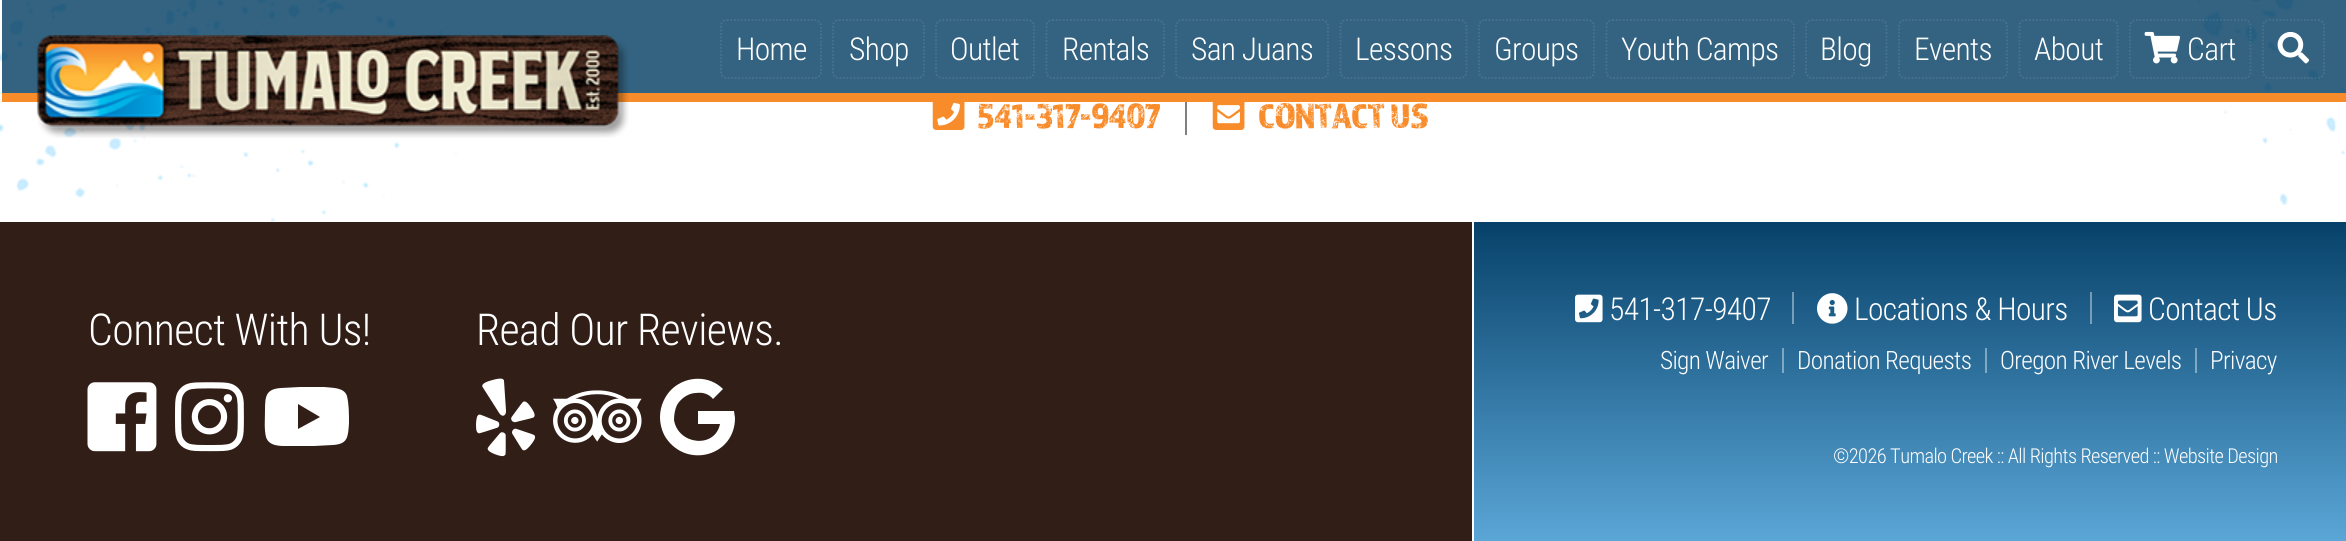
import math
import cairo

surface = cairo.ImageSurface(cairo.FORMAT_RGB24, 2346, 541)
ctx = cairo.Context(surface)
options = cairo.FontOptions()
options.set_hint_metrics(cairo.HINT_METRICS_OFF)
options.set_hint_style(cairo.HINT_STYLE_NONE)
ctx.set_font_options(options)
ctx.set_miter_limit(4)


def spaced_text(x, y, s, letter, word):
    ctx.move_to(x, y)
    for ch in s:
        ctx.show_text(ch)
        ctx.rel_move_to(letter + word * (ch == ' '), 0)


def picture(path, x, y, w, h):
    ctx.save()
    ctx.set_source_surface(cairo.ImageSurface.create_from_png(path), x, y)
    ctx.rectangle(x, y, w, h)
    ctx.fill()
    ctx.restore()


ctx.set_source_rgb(1, 1, 1)
ctx.paint()
picture("img4.png", 0, 0, 2346, 222)
ctx.set_source_rgba(0, 0.239, 0.384, 0.8)
ctx.rectangle(2, 0, 2344, 93)
ctx.fill()
ctx.set_source_rgb(0.502, 0.502, 0.502)
ctx.rectangle(1185, 95, 2, 40)
ctx.fill()
ctx.set_source_rgb(0.973, 0.549, 0.165)
ctx.rectangle(2, 93, 2344, 9)
ctx.fill()
picture("img1.png", 36, 35, 593, 103)
ctx.new_path()
ctx.move_to(727, 20)
ctx.line_to(814.5, 20)
ctx.curve_to(818, 20, 821, 23, 821, 26)
ctx.line_to(821, 72)
ctx.curve_to(821, 75, 818, 78, 814.5, 78)
ctx.line_to(727, 78)
ctx.curve_to(723.5, 78, 721, 75, 721, 72)
ctx.line_to(721, 26)
ctx.curve_to(721, 23, 723.5, 20, 727, 20)
ctx.close_path()
ctx.set_source_rgb(0.278, 0.451, 0.557)
ctx.set_line_width(1.8)
ctx.set_dash([1.75, 1.75])
ctx.stroke()
ctx.select_font_face("Roboto Condensed Light")
ctx.set_font_size(31.5)
ctx.set_source_rgb(1, 1, 1)
spaced_text(736, 60, "Home", -0.63, 0)
ctx.new_path()
ctx.move_to(839, 20)
ctx.line_to(918, 20)
ctx.curve_to(921.5, 20, 924, 23, 924, 26)
ctx.line_to(924, 72)
ctx.curve_to(924, 75, 921.5, 78, 918, 78)
ctx.line_to(839, 78)
ctx.curve_to(835.5, 78, 833, 75, 833, 72)
ctx.line_to(833, 26)
ctx.curve_to(833, 23, 835.5, 20, 839, 20)
ctx.close_path()
ctx.set_source_rgb(0.278, 0.451, 0.557)
ctx.stroke()
ctx.set_source_rgb(1, 1, 1)
spaced_text(849, 60, "Shop", -0.63, 0)
ctx.new_path()
ctx.move_to(942.5, 20)
ctx.line_to(1028, 20)
ctx.curve_to(1031.5, 20, 1034, 23, 1034, 26)
ctx.line_to(1034, 72)
ctx.curve_to(1034, 75, 1031.5, 78, 1028, 78)
ctx.line_to(942.5, 78)
ctx.curve_to(939, 78, 936, 75, 936, 72)
ctx.line_to(936, 26)
ctx.curve_to(936, 23, 939, 20, 942.5, 20)
ctx.close_path()
ctx.set_source_rgb(0.278, 0.451, 0.557)
ctx.stroke()
ctx.set_source_rgb(1, 1, 1)
spaced_text(950, 60, "Outlet", -0.63, 0)
ctx.new_path()
ctx.move_to(1052.5, 20)
ctx.line_to(1157.5, 20)
ctx.curve_to(1161, 20, 1164, 23, 1164, 26)
ctx.line_to(1164, 72)
ctx.curve_to(1164, 75, 1161, 78, 1157.5, 78)
ctx.line_to(1052.5, 78)
ctx.curve_to(1049, 78, 1046.5, 75, 1046.5, 72)
ctx.line_to(1046.5, 26)
ctx.curve_to(1046.5, 23, 1049, 20, 1052.5, 20)
ctx.close_path()
ctx.set_source_rgb(0.278, 0.451, 0.557)
ctx.stroke()
ctx.set_source_rgb(1, 1, 1)
spaced_text(1062, 60, "Rentals", -0.63, 0)
ctx.new_path()
ctx.move_to(1182, 20)
ctx.line_to(1322, 20)
ctx.curve_to(1325.5, 20, 1328, 23, 1328, 26)
ctx.line_to(1328, 72)
ctx.curve_to(1328, 75, 1325.5, 78, 1322, 78)
ctx.line_to(1182, 78)
ctx.curve_to(1178.5, 78, 1176, 75, 1176, 72)
ctx.line_to(1176, 26)
ctx.curve_to(1176, 23, 1178.5, 20, 1182, 20)
ctx.close_path()
ctx.set_source_rgb(0.278, 0.451, 0.557)
ctx.stroke()
ctx.set_source_rgb(1, 1, 1)
spaced_text(1191, 60, "San Juans", -0.63, 0)
ctx.new_path()
ctx.move_to(1346.5, 20)
ctx.line_to(1460.5, 20)
ctx.curve_to(1464, 20, 1466.5, 23, 1466.5, 26)
ctx.line_to(1466.5, 72)
ctx.curve_to(1466.5, 75, 1464, 78, 1460.5, 78)
ctx.line_to(1346.5, 78)
ctx.curve_to(1343, 78, 1340.5, 75, 1340.5, 72)
ctx.line_to(1340.5, 26)
ctx.curve_to(1340.5, 23, 1343, 20, 1346.5, 20)
ctx.close_path()
ctx.set_source_rgb(0.278, 0.451, 0.557)
ctx.stroke()
ctx.set_source_rgb(1, 1, 1)
spaced_text(1355, 60, "Lessons", -0.63, 0)
ctx.new_path()
ctx.move_to(1485, 20)
ctx.line_to(1588, 20)
ctx.curve_to(1591.5, 20, 1594, 23, 1594, 26)
ctx.line_to(1594, 72)
ctx.curve_to(1594, 75, 1591.5, 78, 1588, 78)
ctx.line_to(1485, 78)
ctx.curve_to(1481.5, 78, 1479, 75, 1479, 72)
ctx.line_to(1479, 26)
ctx.curve_to(1479, 23, 1481.5, 20, 1485, 20)
ctx.close_path()
ctx.set_source_rgb(0.278, 0.451, 0.557)
ctx.stroke()
ctx.set_source_rgb(1, 1, 1)
spaced_text(1494, 60, "Groups", -0.63, 0)
ctx.new_path()
ctx.move_to(1612.5, 20)
ctx.line_to(1787.5, 20)
ctx.curve_to(1791, 20, 1794, 23, 1794, 26)
ctx.line_to(1794, 72)
ctx.curve_to(1794, 75, 1791, 78, 1787.5, 78)
ctx.line_to(1612.5, 78)
ctx.curve_to(1609, 78, 1606.5, 75, 1606.5, 72)
ctx.line_to(1606.5, 26)
ctx.curve_to(1606.5, 23, 1609, 20, 1612.5, 20)
ctx.close_path()
ctx.set_source_rgb(0.278, 0.451, 0.557)
ctx.stroke()
ctx.set_source_rgb(1, 1, 1)
spaced_text(1621, 60, "Youth Camps", -0.63, 0)
ctx.new_path()
ctx.move_to(1812, 20)
ctx.line_to(1880.5, 20)
ctx.curve_to(1884, 20, 1886.5, 23, 1886.5, 26)
ctx.line_to(1886.5, 72)
ctx.curve_to(1886.5, 75, 1884, 78, 1880.5, 78)
ctx.line_to(1812, 78)
ctx.curve_to(1808.5, 78, 1806, 75, 1806, 72)
ctx.line_to(1806, 26)
ctx.curve_to(1806, 23, 1808.5, 20, 1812, 20)
ctx.close_path()
ctx.set_source_rgb(0.278, 0.451, 0.557)
ctx.stroke()
ctx.set_source_rgb(1, 1, 1)
spaced_text(1820, 60, "Blog", -0.63, 0)
ctx.new_path()
ctx.move_to(1905, 20)
ctx.line_to(2001, 20)
ctx.curve_to(2004.5, 20, 2007, 23, 2007, 26)
ctx.line_to(2007, 72)
ctx.curve_to(2007, 75, 2004.5, 78, 2001, 78)
ctx.line_to(1905, 78)
ctx.curve_to(1901.5, 78, 1899, 75, 1899, 72)
ctx.line_to(1899, 26)
ctx.curve_to(1899, 23, 1901.5, 20, 1905, 20)
ctx.close_path()
ctx.set_source_rgb(0.278, 0.451, 0.557)
ctx.stroke()
ctx.set_source_rgb(1, 1, 1)
spaced_text(1914, 60, "Events", -0.63, 0)
ctx.new_path()
ctx.move_to(2025.5, 20)
ctx.line_to(2111.5, 20)
ctx.curve_to(2115, 20, 2117.5, 23, 2117.5, 26)
ctx.line_to(2117.5, 72)
ctx.curve_to(2117.5, 75, 2115, 78, 2111.5, 78)
ctx.line_to(2025.5, 78)
ctx.curve_to(2022, 78, 2019.5, 75, 2019.5, 72)
ctx.line_to(2019.5, 26)
ctx.curve_to(2019.5, 23, 2022, 20, 2025.5, 20)
ctx.close_path()
ctx.set_source_rgb(0.278, 0.451, 0.557)
ctx.stroke()
ctx.set_source_rgb(1, 1, 1)
spaced_text(2034, 60, "About", -0.63, 0)
ctx.new_path()
ctx.move_to(2136, 20)
ctx.line_to(2244.5, 20)
ctx.curve_to(2248, 20, 2250.5, 23, 2250.5, 26)
ctx.line_to(2250.5, 72)
ctx.curve_to(2250.5, 75, 2248, 78, 2244.5, 78)
ctx.line_to(2136, 78)
ctx.curve_to(2132.5, 78, 2130, 75, 2130, 72)
ctx.line_to(2130, 26)
ctx.curve_to(2130, 23, 2132.5, 20, 2136, 20)
ctx.close_path()
ctx.set_source_rgba(1, 1, 1, 0.1)
ctx.stroke()
picture("img2.png", 2144, 31, 36, 33)
ctx.set_source_rgb(1, 1, 1)
spaced_text(2187, 60, "Cart", -0.63, 0)
ctx.new_path()
ctx.move_to(2269, 20)
ctx.line_to(2318, 20)
ctx.curve_to(2321.5, 20, 2324, 23, 2324, 26)
ctx.line_to(2324, 72)
ctx.curve_to(2324, 75, 2321.5, 78, 2318, 78)
ctx.line_to(2269, 78)
ctx.curve_to(2265.5, 78, 2263, 75, 2263, 72)
ctx.line_to(2263, 26)
ctx.curve_to(2263, 23, 2265.5, 20, 2269, 20)
ctx.close_path()
ctx.set_source_rgba(1, 1, 1, 0.1)
ctx.stroke()
picture("img3.png", 2277, 31, 33, 33)
picture("img5.png", 932, 102, 33, 28)
ctx.select_font_face("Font")
ctx.set_font_size(36.25)
ctx.set_source_rgb(0.973, 0.549, 0.165)
spaced_text(977, 128, "541-317-9407", -0.63, 0)
picture("img6.png", 1212, 102, 33, 28)
spaced_text(1258, 128, "CONTACT US", -0.63, 0)
ctx.set_source_rgb(0.192, 0.118, 0.09)
ctx.rectangle(0, 222, 1472, 319)
ctx.fill()
ctx.select_font_face("Roboto Condensed Light")
ctx.set_font_size(44)
ctx.set_source_rgb(1, 1, 1)
spaced_text(88, 345, "Connect With Us!", -0.63, 0)
picture("img7.png", 87, 382, 70, 70)
picture("img8.png", 175, 382, 69, 70)
ctx.new_path()
ctx.move_to(347, 396)
ctx.curve_to(344, 387, 332, 388, 324, 387)
ctx.line_to(300, 387)
ctx.line_to(281, 388)
ctx.curve_to(266, 389, 265, 396, 265, 410)
ctx.curve_to(265, 419, 264, 429, 266, 437)
ctx.curve_to(269, 447, 282, 446, 289, 446)
ctx.line_to(314, 446)
ctx.line_to(333, 445)
ctx.curve_to(348, 444, 348, 437, 349, 423)
ctx.curve_to(349, 414, 349, 405, 347, 396)
ctx.close_path()
ctx.move_to(298, 429)
ctx.line_to(298, 404)
ctx.line_to(320, 417)
ctx.close_path()
ctx.fill()
spaced_text(476, 345, "Read Our Reviews.", -0.63, 0)
picture("img9.png", 476, 378, 60, 79)
picture("img10.png", 553, 390, 89, 53)
ctx.new_path()
ctx.move_to(735, 418)
ctx.curve_to(735, 456, 687, 469, 666, 438)
ctx.curve_to(662, 432, 660, 424, 660, 417)
ctx.curve_to(660, 406, 665, 395, 673, 388)
ctx.curve_to(687, 376, 709, 375, 723, 389)
ctx.line_to(713, 399)
ctx.curve_to(709, 394, 703, 392, 696, 393)
ctx.curve_to(689, 393, 681, 398, 677, 405)
ctx.curve_to(675, 409, 674, 415, 674, 420)
ctx.curve_to(678, 445, 715, 449, 720, 424)
ctx.line_to(698, 424)
ctx.line_to(698, 411)
ctx.line_to(734, 411)
ctx.close_path()
ctx.fill()
gradient = cairo.LinearGradient(1910, 222, 1910, 541)
gradient.add_color_stop_rgba(0, 0.027, 0.255, 0.412, 1)
gradient.add_color_stop_rgba(1, 0.353, 0.651, 0.843, 1)
ctx.set_source(gradient)
ctx.rectangle(1474, 222, 872, 319)
ctx.fill()
gradient = cairo.LinearGradient(1910, 222, 1910, 541)
gradient.add_color_stop_rgba(0, 0.416, 0.553, 0.647, 1)
gradient.add_color_stop_rgba(1, 0.612, 0.792, 0.906, 1)
ctx.set_source(gradient)
ctx.rectangle(2195, 348, 2, 25)
ctx.fill()
ctx.rectangle(1985, 348, 2, 25)
ctx.fill()
ctx.rectangle(1782, 348, 2, 25)
ctx.fill()
ctx.rectangle(2090, 292, 2, 32)
ctx.fill()
ctx.rectangle(1792, 292, 2, 32)
ctx.fill()
picture("img11.png", 1575, 294, 28, 29)
ctx.set_font_size(31.5)
ctx.set_source_rgb(1, 1, 1)
spaced_text(1609, 320, "541-317-9407", -0.63, 0)
picture("img12.png", 1817, 293, 31, 31)
spaced_text(1854, 320, "Locations & Hours", -0.63, 0)
picture("img13.png", 2114, 294, 28, 29)
spaced_text(2148, 320, "Contact Us", -0.63, 0)
ctx.set_font_size(25.25)
spaced_text(1660, 369, "Sign Waiver", -0.63, 0)
spaced_text(1797, 369, "Donation Requests", -0.63, 0)
spaced_text(2000, 369, "Oregon River Levels", -0.63, 0)
spaced_text(2210, 369, "Privacy", -0.63, 0)
ctx.set_font_size(20.5)
spaced_text(1833, 463, "©2026 Tumalo Creek :: All Rights Reserved :: Website Design", -0.63, 0)
surface.write_to_png("page.png")
